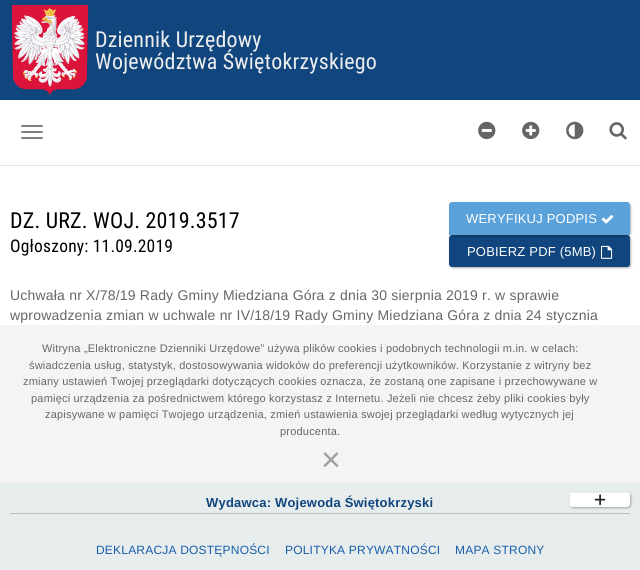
import math
import cairo

surface = cairo.ImageSurface(cairo.FORMAT_RGB24, 640, 570)
ctx = cairo.Context(surface)
options = cairo.FontOptions()
options.set_hint_metrics(cairo.HINT_METRICS_OFF)
options.set_hint_style(cairo.HINT_STYLE_NONE)
ctx.set_font_options(options)
ctx.set_miter_limit(4)


def spaced_text(x, y, s, letter, word):
    ctx.move_to(x, y)
    for ch in s:
        ctx.show_text(ch)
        ctx.rel_move_to(letter + word * (ch == ' '), 0)


def round_rect(x, y, w, h, r):
    ctx.new_sub_path()
    for i, (u, v) in enumerate([(x + w - r, y + h - r), (x + r, y + h - r), (x + r, y + r), (x + w - r, y + r)]):
        ctx.arc(u, v, r, i * math.pi / 2, (i + 1) * math.pi / 2)
    ctx.close_path()


def shadow(x, y, w, h, r, blur, alpha):
    ctx.push_group_with_content(cairo.CONTENT_ALPHA)
    ctx.set_operator(cairo.OPERATOR_SOURCE)
    for i in range(15, -16, -2):
        e = blur * i / 6
        if min(w, h) + 2 * e > 0:
            ctx.set_source_rgba(0, 0, 0, alpha * math.erfc((i - 1) / 8.5) / 2)
            round_rect(x - e, y - e, w + 2 * e, h + 2 * e, max(0, min(r + e + blur * .6, min(w, h) / 2 + e)))
            ctx.fill()
    ctx.mask(ctx.pop_group())


def picture(path, x, y, w, h):
    ctx.save()
    ctx.set_source_surface(cairo.ImageSurface.create_from_png(path), x, y)
    ctx.rectangle(x, y, w, h)
    ctx.fill()
    ctx.restore()


ctx.set_source_rgb(1, 1, 1)
ctx.paint()
ctx.set_source_rgb(0.063, 0.271, 0.49)
ctx.rectangle(0, 0, 640, 100)
ctx.fill()
picture("img1.png", 11, 5, 78, 90)
ctx.select_font_face("Roboto Condensed")
ctx.set_font_size(22)
ctx.set_source_rgb(0.933, 0.933, 0.933)
spaced_text(95, 47, "Dziennik Urzędowy", 0.2, 0)
spaced_text(95, 69, "Województwa Świętokrzyskiego", 0.2, 0)
ctx.save()
ctx.rectangle(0, 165, 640, 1)
ctx.clip()
ctx.set_source_rgb(0, 0, 0)
shadow(0, 101, 640, 64, 0, 1, 0.3)
ctx.restore()
ctx.set_source_rgb(0.502, 0.502, 0.502)
round_rect(21, 125, 22, 2, 1)
ctx.fill()
round_rect(21, 131, 22, 2, 1)
ctx.fill()
round_rect(21, 137, 22, 2, 1)
ctx.fill()
picture("img2.png", 478, 121, 18, 19)
picture("img3.png", 522, 121, 18, 19)
picture("img4.png", 566, 121, 18, 19)
picture("img5.png", 609, 122, 18, 18)
ctx.set_source_rgb(1, 1, 1)
ctx.rectangle(0, 164, 640, 1)
ctx.fill()
ctx.set_source_rgb(0, 0, 0)
spaced_text(10, 228, "DZ. URZ. WOJ. 2019.3517", 0.2, 0)
ctx.set_font_size(17.5)
spaced_text(10, 252, "Ogłoszony: 11.09.2019", 0.2, 0)
ctx.set_source_rgb(0, 0, 0)
shadow(450, 236, 181, 32, 3, 1, 0.3)
ctx.set_source_rgb(0.063, 0.271, 0.49)
round_rect(449, 235, 181, 32, 3)
ctx.fill()
ctx.set_source_rgb(0, 0, 0)
shadow(450, 203, 181, 33, 3, 1, 0.3)
ctx.set_source_rgb(0.357, 0.635, 0.859)
ctx.new_path()
ctx.move_to(452, 202)
ctx.line_to(627, 202)
ctx.curve_to(628.5, 202, 630, 203.5, 630, 205)
ctx.line_to(630, 235)
ctx.line_to(449, 235)
ctx.line_to(449, 205)
ctx.curve_to(449, 203.5, 450.5, 202, 452, 202)
ctx.close_path()
ctx.fill()
ctx.select_font_face("Liberation Sans")
ctx.set_font_size(13)
ctx.set_source_rgb(1, 1, 1)
spaced_text(466, 223, "WERYFIKUJ PODPIS", 0.2, 0)
picture("img6.png", 601, 215, 13, 9)
spaced_text(467, 256, "POBIERZ PDF (5MB)", 0.2, 0)
picture("img7.png", 601, 245, 12, 14)
ctx.set_font_size(14)
ctx.set_source_rgb(0.4, 0.4, 0.4)
spaced_text(10, 300, "Uchwała nr X/78/19 Rady Gminy Miedziana Góra z dnia 30 sierpnia 2019 r. w sprawie", 0.2, 0)
spaced_text(10, 320, "wprowadzenia zmian w uchwale nr IV/18/19 Rady Gminy Miedziana Góra z dnia 24 stycznia", 0.2, 0)
ctx.set_source_rgb(0.906, 0.922, 0.929)
ctx.rectangle(0, 483, 640, 87)
ctx.fill()
ctx.set_source_rgb(0, 0, 0)
shadow(570, 493, 61, 15, 3, 1, 0.3)
ctx.set_source_rgb(1, 1, 1)
round_rect(569, 492, 61, 15, 3)
ctx.fill()
ctx.set_source_rgb(0.933, 0.933, 0.933)
ctx.set_fill_rule(cairo.FILL_RULE_EVEN_ODD)
ctx.new_path()
ctx.move_to(572, 492)
ctx.line_to(618, 492)
ctx.curve_to(627, 492, 630, 490, 630, 498)
ctx.curve_to(630, 509, 630, 507, 618, 507)
ctx.line_to(581, 507)
ctx.curve_to(567, 507, 569, 508, 569, 495)
ctx.curve_to(569, 493, 570, 492, 572, 492)
ctx.close_path()
ctx.move_to(572, 493)
ctx.line_to(627, 493)
ctx.curve_to(629, 493, 630, 494, 630, 495)
ctx.line_to(630, 504)
ctx.curve_to(630, 506, 629, 507, 627, 507)
ctx.line_to(572, 507)
ctx.curve_to(571, 507, 570, 506, 570, 504)
ctx.line_to(570, 495)
ctx.curve_to(570, 494, 571, 493, 572, 493)
ctx.close_path()
ctx.fill()
picture("img8.png", 594, 494, 12, 12)
ctx.set_source_rgb(0.957, 0.957, 0.957)
ctx.rectangle(0, 325, 640, 158)
ctx.fill()
ctx.set_font_size(11)
ctx.set_source_rgb(0.4, 0.4, 0.4)
spaced_text(42, 352, "Witryna „Elektroniczne Dzienniki Urzędowe” używa plików cookies i podobnych technologii m.in. w celach:", 0.2, 0)
spaced_text(29, 369, "świadczenia usług, statystyk, dostosowywania widoków do preferencji użytkowników. Korzystanie z witryny bez", 0.2, 0)
spaced_text(23, 385, "zmiany ustawień Twojej przeglądarki dotyczących cookies oznacza, że zostaną one zapisane i przechowywane w", 0.2, 0)
spaced_text(31, 402, "pamięci urządzenia za pośrednictwem którego korzystasz z Internetu. Jeżeli nie chcesz żeby pliki cookies były", 0.2, 0)
spaced_text(45, 418, "zapisywane w pamięci Twojego urządzenia, zmień ustawienia swojej przeglądarki według wytycznych jej", 0.2, 0)
spaced_text(280, 435, "producenta.", 0.2, 0)
ctx.set_font_size(34)
ctx.set_source_rgb(0.624, 0.624, 0.624)
ctx.move_to(321, 471)
ctx.show_text("×")
ctx.select_font_face("Liberation Sans", cairo.FONT_SLANT_NORMAL, cairo.FONT_WEIGHT_BOLD)
ctx.set_font_size(13)
ctx.set_source_rgb(0.063, 0.271, 0.49)
spaced_text(206, 507, "Wydawca: Wojewoda Świętokrzyski", 0.2, 0)
ctx.set_source_rgb(0.725, 0.737, 0.745)
ctx.rectangle(10, 513, 620, 1)
ctx.fill()
ctx.select_font_face("Liberation Sans")
ctx.set_font_size(12)
ctx.set_source_rgb(0.086, 0.369, 0.667)
spaced_text(96, 554, "DEKLARACJA DOSTĘPNOŚCI", 0.2, 0)
spaced_text(285, 554, "POLITYKA PRYWATNOŚCI", 0.2, 0)
spaced_text(455, 554, "MAPA STRONY", 0.2, 0)
surface.write_to_png("page.png")
